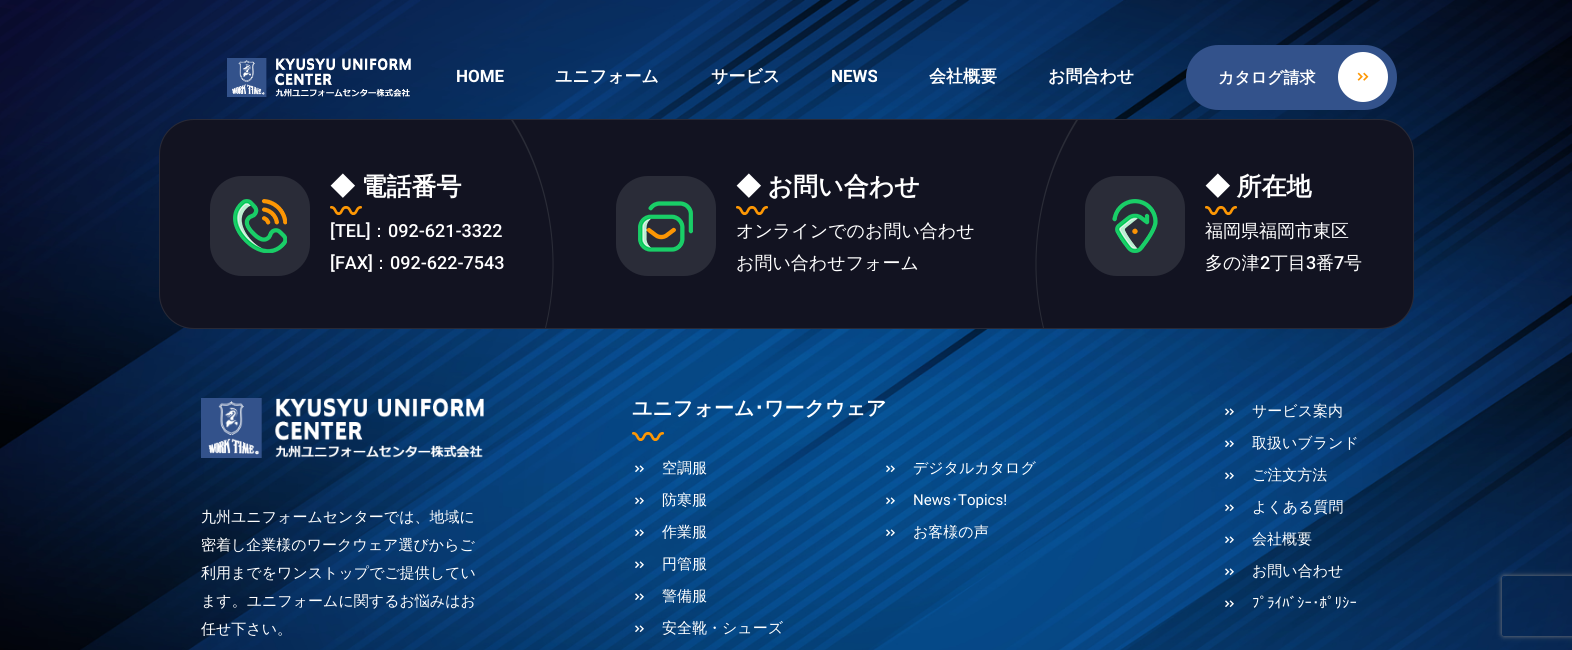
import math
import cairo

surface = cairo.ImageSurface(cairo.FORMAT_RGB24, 1572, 650)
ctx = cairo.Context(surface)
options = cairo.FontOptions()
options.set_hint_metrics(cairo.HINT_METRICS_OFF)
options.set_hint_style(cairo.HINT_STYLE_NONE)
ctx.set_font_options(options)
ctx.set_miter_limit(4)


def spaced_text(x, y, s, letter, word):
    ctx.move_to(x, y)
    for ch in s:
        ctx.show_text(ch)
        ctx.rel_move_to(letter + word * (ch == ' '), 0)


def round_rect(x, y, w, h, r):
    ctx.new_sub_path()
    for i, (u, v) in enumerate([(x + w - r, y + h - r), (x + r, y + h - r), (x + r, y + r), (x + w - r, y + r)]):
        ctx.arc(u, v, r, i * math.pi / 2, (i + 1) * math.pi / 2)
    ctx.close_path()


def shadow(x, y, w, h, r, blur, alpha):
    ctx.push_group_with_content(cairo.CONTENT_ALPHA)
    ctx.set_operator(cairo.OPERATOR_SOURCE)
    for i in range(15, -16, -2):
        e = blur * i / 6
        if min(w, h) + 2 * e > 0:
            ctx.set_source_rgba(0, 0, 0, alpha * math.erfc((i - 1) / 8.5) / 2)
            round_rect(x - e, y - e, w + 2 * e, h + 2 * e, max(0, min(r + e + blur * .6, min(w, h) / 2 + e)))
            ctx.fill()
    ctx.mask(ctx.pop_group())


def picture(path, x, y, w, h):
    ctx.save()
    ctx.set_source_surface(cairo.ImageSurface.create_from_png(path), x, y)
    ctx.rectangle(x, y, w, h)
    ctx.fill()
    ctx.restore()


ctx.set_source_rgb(1, 1, 1)
ctx.paint()
picture("img3.png", 0, 0, 1572, 650)
picture("img1.png", 227, 58, 184, 39)
ctx.select_font_face("Roboto", cairo.FONT_SLANT_NORMAL, cairo.FONT_WEIGHT_BOLD)
ctx.set_font_size(17)
ctx.set_source_rgb(1, 1, 1)
ctx.move_to(456, 82)
ctx.show_text("HOME")
ctx.select_font_face("WenQuanYi Zen Hei", cairo.FONT_SLANT_NORMAL, cairo.FONT_WEIGHT_BOLD)
ctx.move_to(555, 82)
ctx.show_text("ユニフォーム")
ctx.move_to(711, 82)
ctx.show_text("サービス")
ctx.select_font_face("Roboto", cairo.FONT_SLANT_NORMAL, cairo.FONT_WEIGHT_BOLD)
ctx.move_to(831, 82)
ctx.show_text("NEWS")
ctx.select_font_face("WenQuanYi Zen Hei", cairo.FONT_SLANT_NORMAL, cairo.FONT_WEIGHT_BOLD)
ctx.move_to(929, 82)
ctx.show_text("会社概要")
ctx.move_to(1048, 82)
ctx.show_text("お問合わせ")
ctx.set_source_rgb(0.2, 0.322, 0.545)
round_rect(1186, 45, 211, 65, 32.5)
ctx.fill()
ctx.set_font_size(16)
ctx.set_source_rgb(1, 1, 1)
ctx.move_to(1218, 83)
ctx.show_text("カタログ請求")
ctx.new_path()
ctx.arc(1363, 77, 25, 0, 2 * math.pi)
ctx.fill()
picture("img2.png", 1357, 72, 12, 9)
ctx.set_source_rgb(0.071, 0.078, 0.129)
round_rect(159, 119, 1255, 210, 35)
ctx.fill()
round_rect(159.5, 119.5, 1254, 209, 34.5)
ctx.set_source_rgba(1, 1, 1, 0.1)
ctx.set_line_width(1)
ctx.stroke()
ctx.set_source_rgb(0.165, 0.173, 0.22)
round_rect(210, 176, 100, 100, 32)
ctx.fill()
picture("img4.png", 233, 199, 54, 54)
ctx.set_font_size(25)
ctx.set_source_rgb(1, 1, 1)
spaced_text(330, 195, "◆ 電話番号", 0, -1)
picture("img5.png", 330, 206, 32, 9)
ctx.select_font_face("Roboto Medium")
ctx.set_font_size(18)
ctx.move_to(330, 237)
ctx.show_text("[TEL]")
ctx.select_font_face("WenQuanYi Zen Hei Medium")
ctx.move_to(370, 237)
ctx.show_text("：")
ctx.select_font_face("Roboto Medium")
ctx.move_to(388, 237)
ctx.show_text("092-621-3322")
ctx.move_to(330, 269)
ctx.show_text("[FAX]")
ctx.select_font_face("WenQuanYi Zen Hei Medium")
ctx.move_to(372, 269)
ctx.show_text("：")
ctx.select_font_face("Roboto Medium")
ctx.move_to(390, 269)
ctx.show_text("092-622-7543")
ctx.set_source_rgb(0.165, 0.173, 0.216)
ctx.new_path()
ctx.move_to(513, 120)
ctx.curve_to(551, 181, 563, 258, 546, 328)
ctx.line_to(545, 328)
ctx.curve_to(562, 258, 550, 181, 511, 120)
ctx.close_path()
ctx.fill()
ctx.set_source_rgb(0.165, 0.173, 0.22)
round_rect(616, 176, 100, 100, 32)
ctx.fill()
picture("img6.png", 638, 201, 55, 51)
ctx.select_font_face("WenQuanYi Zen Hei", cairo.FONT_SLANT_NORMAL, cairo.FONT_WEIGHT_BOLD)
ctx.set_font_size(25)
ctx.set_source_rgb(1, 1, 1)
spaced_text(736, 195, "◆ お問い合わせ", 0, -1)
picture("img5.png", 736, 206, 32, 9)
ctx.select_font_face("WenQuanYi Zen Hei Medium")
ctx.set_font_size(18)
ctx.move_to(736, 237)
ctx.show_text("オンラインでのお問い合わせ")
ctx.move_to(736, 269)
ctx.show_text("お問い合わせフォーム")
ctx.set_source_rgb(0.165, 0.173, 0.216)
ctx.new_path()
ctx.move_to(1043, 328)
ctx.curve_to(1026, 258, 1038, 181, 1076, 120)
ctx.line_to(1078, 120)
ctx.curve_to(1039, 181, 1027, 258, 1044, 328)
ctx.close_path()
ctx.fill()
ctx.set_source_rgb(0.165, 0.173, 0.22)
round_rect(1085, 176, 100, 100, 32)
ctx.fill()
picture("img7.png", 1112, 199, 46, 54)
ctx.select_font_face("WenQuanYi Zen Hei", cairo.FONT_SLANT_NORMAL, cairo.FONT_WEIGHT_BOLD)
ctx.set_font_size(25)
ctx.set_source_rgb(1, 1, 1)
spaced_text(1205, 195, "◆ 所在地", 0, -1)
picture("img5.png", 1205, 206, 32, 9)
ctx.select_font_face("WenQuanYi Zen Hei Medium")
ctx.set_font_size(18)
ctx.move_to(1205, 237)
ctx.show_text("福岡県福岡市東区")
ctx.move_to(1205, 269)
ctx.show_text("多の津")
ctx.select_font_face("Roboto Medium")
ctx.move_to(1260, 269)
ctx.show_text("2")
ctx.select_font_face("WenQuanYi Zen Hei Medium")
ctx.move_to(1270, 269)
ctx.show_text("丁目")
ctx.select_font_face("Roboto Medium")
ctx.move_to(1306, 269)
ctx.show_text("3")
ctx.select_font_face("WenQuanYi Zen Hei Medium")
ctx.move_to(1316, 269)
ctx.show_text("番")
ctx.select_font_face("Roboto Medium")
ctx.move_to(1334, 269)
ctx.show_text("7")
ctx.select_font_face("WenQuanYi Zen Hei Medium")
ctx.move_to(1344, 269)
ctx.show_text("号")
picture("img8.png", 201, 398, 283, 60)
ctx.set_font_size(15)
ctx.move_to(201, 522)
ctx.show_text("九州ユニフォームセンターでは、地域に")
ctx.move_to(201, 550)
ctx.show_text("密着し企業様のワークウェア選びからご")
ctx.move_to(201, 578)
ctx.show_text("利用までをワンストップでご提供してい")
ctx.move_to(201, 606)
ctx.show_text("ます。ユニフォームに関するお悩みはお")
ctx.move_to(201, 634)
ctx.show_text("任せ下さい。")
ctx.select_font_face("WenQuanYi Zen Hei", cairo.FONT_SLANT_NORMAL, cairo.FONT_WEIGHT_BOLD)
ctx.set_font_size(20)
ctx.move_to(632, 415)
ctx.show_text("ユニフォーム")
ctx.select_font_face("IPAPGothic", cairo.FONT_SLANT_NORMAL, cairo.FONT_WEIGHT_BOLD)
ctx.move_to(754, 415)
ctx.show_text("･")
ctx.select_font_face("WenQuanYi Zen Hei", cairo.FONT_SLANT_NORMAL, cairo.FONT_WEIGHT_BOLD)
ctx.move_to(764, 415)
ctx.show_text("ワークウェア")
picture("img9.png", 632, 432, 32, 9)
picture("img10.png", 635, 465, 9, 8)
ctx.select_font_face("WenQuanYi Zen Hei Medium")
ctx.set_font_size(15)
ctx.move_to(662, 473)
ctx.show_text("空調服")
picture("img11.png", 635, 497, 9, 8)
ctx.move_to(662, 505)
ctx.show_text("防寒服")
picture("img12.png", 635, 529, 9, 8)
ctx.move_to(662, 537)
ctx.show_text("作業服")
picture("img13.png", 635, 561, 9, 8)
ctx.move_to(662, 569)
ctx.show_text("円管服")
picture("img14.png", 635, 593, 9, 8)
ctx.move_to(662, 601)
ctx.show_text("警備服")
picture("img15.png", 635, 625, 9, 8)
ctx.move_to(662, 633)
ctx.show_text("安全靴・シューズ")
picture("img16.png", 886, 465, 9, 8)
ctx.move_to(913, 473)
ctx.show_text("デジタルカタログ")
picture("img17.png", 886, 497, 9, 8)
ctx.select_font_face("Roboto")
ctx.move_to(913, 505)
ctx.show_text("News")
ctx.select_font_face("IPAPGothic")
ctx.move_to(951, 505)
ctx.show_text("･")
ctx.select_font_face("Roboto")
ctx.move_to(958, 505)
ctx.show_text("Topics!")
picture("img18.png", 886, 529, 9, 8)
ctx.select_font_face("WenQuanYi Zen Hei Medium")
ctx.move_to(913, 537)
ctx.show_text("お客様の声")
picture("img19.png", 1225, 408, 9, 8)
ctx.move_to(1252, 416)
ctx.show_text("サービス案内")
picture("img20.png", 1225, 440, 9, 8)
ctx.move_to(1252, 448)
ctx.show_text("取扱いブランド")
picture("img21.png", 1225, 472, 9, 8)
ctx.move_to(1252, 480)
ctx.show_text("ご注文方法")
picture("img22.png", 1225, 504, 9, 8)
ctx.move_to(1252, 512)
ctx.show_text("よくある質問")
picture("img23.png", 1225, 536, 9, 8)
ctx.move_to(1252, 544)
ctx.show_text("会社概要")
picture("img24.png", 1225, 568, 9, 8)
ctx.move_to(1252, 576)
ctx.show_text("お問い合わせ")
picture("img25.png", 1225, 600, 9, 8)
ctx.select_font_face("IPAPGothic")
ctx.move_to(1252, 608)
ctx.show_text("ﾌﾟﾗｲﾊﾞｼｰ･ﾎﾟﾘｼｰ")
ctx.save()
ctx.set_fill_rule(cairo.FILL_RULE_EVEN_ODD)
ctx.new_path()
ctx.move_to(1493, 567)
ctx.line_to(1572, 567)
ctx.line_to(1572, 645)
ctx.line_to(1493, 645)
ctx.close_path()
ctx.move_to(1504, 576)
ctx.line_to(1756, 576)
ctx.curve_to(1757, 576, 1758, 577, 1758, 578)
ctx.line_to(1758, 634)
ctx.curve_to(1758, 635, 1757, 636, 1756, 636)
ctx.line_to(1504, 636)
ctx.curve_to(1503, 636, 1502, 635, 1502, 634)
ctx.line_to(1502, 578)
ctx.curve_to(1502, 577, 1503, 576, 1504, 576)
ctx.close_path()
ctx.clip()
ctx.set_source_rgb(0.502, 0.502, 0.502)
shadow(1502, 576, 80, 60, 2, 2.5, 1)
ctx.restore()
surface.write_to_png("page.png")
